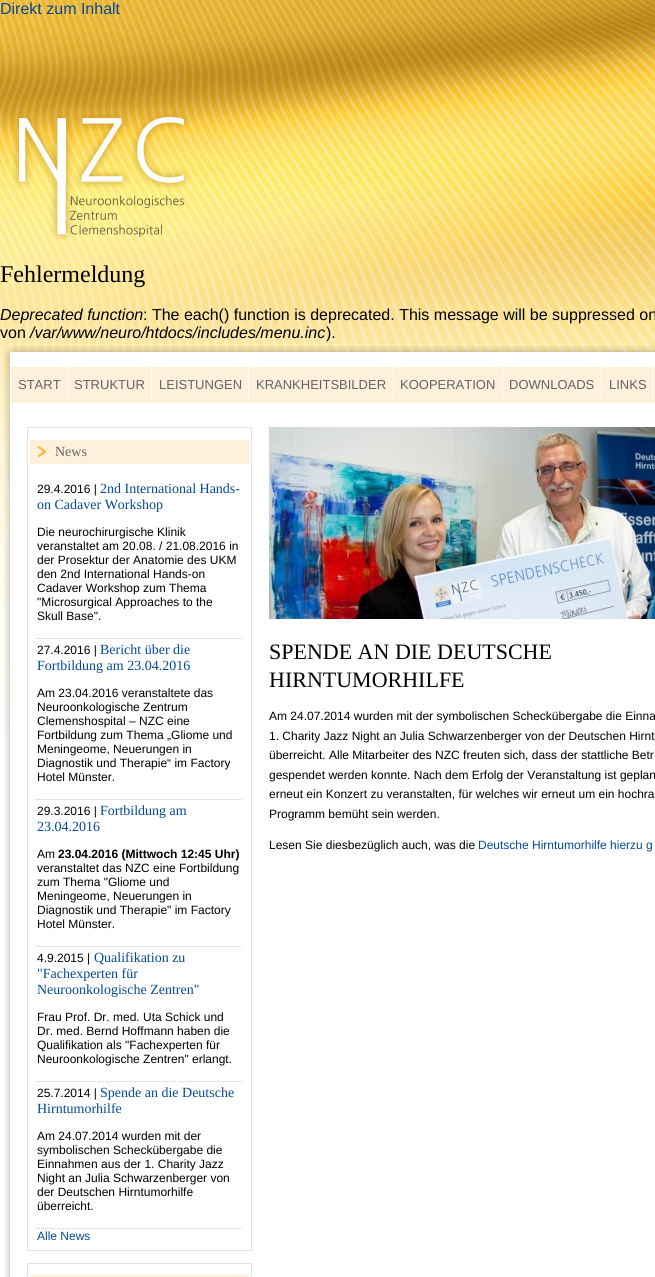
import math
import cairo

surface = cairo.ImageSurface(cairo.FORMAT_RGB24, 655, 1277)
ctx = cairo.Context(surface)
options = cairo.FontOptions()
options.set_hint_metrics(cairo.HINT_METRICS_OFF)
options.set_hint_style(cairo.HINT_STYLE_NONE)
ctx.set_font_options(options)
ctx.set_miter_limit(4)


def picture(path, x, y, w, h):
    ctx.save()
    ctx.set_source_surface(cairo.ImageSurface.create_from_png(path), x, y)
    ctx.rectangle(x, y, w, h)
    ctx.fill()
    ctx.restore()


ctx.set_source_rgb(1, 1, 1)
ctx.paint()
picture("img1.png", 0, 0, 655, 736)
ctx.select_font_face("Liberation Sans")
ctx.set_font_size(16)
ctx.set_source_rgb(0.016, 0.286, 0.596)
ctx.move_to(0, 14)
ctx.show_text("Direkt zum Inhalt")
picture("img2.png", 12, 111, 178, 130)
ctx.select_font_face("Liberation Serif")
ctx.set_font_size(24)
ctx.set_source_rgb(0, 0, 0)
ctx.move_to(0, 282)
ctx.show_text("Fehlermeldung")
ctx.select_font_face("Liberation Sans", cairo.FONT_SLANT_ITALIC)
ctx.set_font_size(16)
ctx.move_to(0, 320)
ctx.show_text("Deprecated function")
ctx.select_font_face("Liberation Sans")
ctx.move_to(143, 320)
ctx.show_text(": The each() function is deprecated. This message will be suppressed on")
ctx.move_to(0, 338)
ctx.show_text("von")
ctx.select_font_face("Liberation Sans", cairo.FONT_SLANT_ITALIC)
ctx.move_to(30, 338)
ctx.show_text("/var/www/neuro/htdocs/includes/menu.inc")
ctx.select_font_face("Liberation Sans")
ctx.move_to(326, 338)
ctx.show_text(").")
picture("img3.png", 4, 346, 651, 9)
picture("img4.png", 4, 355, 651, 922)
ctx.set_source_rgb(1, 0.941, 0.859)
ctx.rectangle(10, 367, 645, 36)
ctx.fill()
ctx.set_source_rgb(1, 1, 1)
ctx.rectangle(10, 367, 1, 35)
ctx.fill()
ctx.set_font_size(13)
ctx.set_source_rgb(0.388, 0.388, 0.388)
ctx.move_to(18, 389)
ctx.show_text("START")
ctx.set_source_rgb(1, 1, 1)
ctx.rectangle(67, 367, 1, 35)
ctx.fill()
ctx.set_source_rgb(0.388, 0.388, 0.388)
ctx.move_to(74, 389)
ctx.show_text("STRUKTUR")
ctx.set_source_rgb(1, 1, 1)
ctx.rectangle(151, 367, 1, 35)
ctx.fill()
ctx.set_source_rgb(0.388, 0.388, 0.388)
ctx.move_to(159, 389)
ctx.show_text("LEISTUNGEN")
ctx.set_source_rgb(1, 1, 1)
ctx.rectangle(248, 367, 1, 35)
ctx.fill()
ctx.set_source_rgb(0.388, 0.388, 0.388)
ctx.move_to(256, 389)
ctx.show_text("KRANKHEITSBILDER")
ctx.set_source_rgb(1, 1, 1)
ctx.rectangle(393, 367, 1, 35)
ctx.fill()
ctx.set_source_rgb(0.388, 0.388, 0.388)
ctx.move_to(400, 389)
ctx.show_text("KOOPERATION")
ctx.set_source_rgb(1, 1, 1)
ctx.rectangle(502, 367, 1, 35)
ctx.fill()
ctx.set_source_rgb(0.388, 0.388, 0.388)
ctx.move_to(509, 389)
ctx.show_text("DOWNLOADS")
ctx.set_source_rgb(1, 1, 1)
ctx.rectangle(601, 367, 1, 35)
ctx.fill()
ctx.set_source_rgb(0.388, 0.388, 0.388)
ctx.move_to(609, 389)
ctx.show_text("LINKS")
ctx.set_source_rgb(1, 1, 1)
ctx.rectangle(653, 367, 1, 35)
ctx.fill()
ctx.rectangle(27.5, 427.5, 224, 823)
ctx.set_source_rgb(0.886, 0.886, 0.886)
ctx.set_line_width(1)
ctx.stroke()
ctx.set_source_rgb(1, 0.941, 0.859)
ctx.rectangle(30, 440, 219, 24)
ctx.fill()
picture("img5.png", 37, 446, 10, 11)
ctx.select_font_face("Liberation Serif")
ctx.set_font_size(14)
ctx.set_source_rgb(0.388, 0.388, 0.388)
ctx.move_to(55, 456)
ctx.show_text("News")
ctx.new_path()
ctx.move_to(37, 638.5)
ctx.line_to(242, 638.5)
ctx.set_source_rgb(0.8, 0.8, 0.8)
ctx.set_dash([1, 1])
ctx.stroke()
ctx.select_font_face("Liberation Sans")
ctx.set_font_size(12)
ctx.set_source_rgb(0, 0, 0)
ctx.move_to(37, 493)
ctx.show_text("29.4.2016 |")
ctx.select_font_face("Liberation Serif")
ctx.set_font_size(14)
ctx.set_source_rgb(0.016, 0.286, 0.596)
ctx.move_to(100, 493)
ctx.show_text("2nd International Hands-")
ctx.move_to(37, 509)
ctx.show_text("on Cadaver Workshop")
ctx.select_font_face("Liberation Sans")
ctx.set_font_size(12)
ctx.set_source_rgb(0, 0, 0)
ctx.move_to(37, 536)
ctx.show_text("Die neurochirurgische Klinik")
ctx.move_to(37, 550)
ctx.show_text("veranstaltet am 20.08. / 21.08.2016 in")
ctx.move_to(37, 564)
ctx.show_text("der Prosektur der Anatomie des UKM")
ctx.move_to(37, 578)
ctx.show_text("den 2nd International Hands-on")
ctx.move_to(37, 592)
ctx.show_text("Cadaver Workshop zum Thema")
ctx.move_to(37, 606)
ctx.show_text("\"Microsurgical Approaches to the")
ctx.move_to(37, 620)
ctx.show_text("Skull Base\".")
ctx.new_path()
ctx.move_to(37, 799.5)
ctx.line_to(242, 799.5)
ctx.set_source_rgb(0.8, 0.8, 0.8)
ctx.stroke()
ctx.set_source_rgb(0, 0, 0)
ctx.move_to(37, 654)
ctx.show_text("27.4.2016 |")
ctx.select_font_face("Liberation Serif")
ctx.set_font_size(14)
ctx.set_source_rgb(0.016, 0.286, 0.596)
ctx.move_to(100, 654)
ctx.show_text("Bericht über die")
ctx.move_to(37, 670)
ctx.show_text("Fortbildung am 23.04.2016")
ctx.select_font_face("Liberation Sans")
ctx.set_font_size(12)
ctx.set_source_rgb(0, 0, 0)
ctx.move_to(37, 697)
ctx.show_text("Am 23.04.2016 veranstaltete das")
ctx.move_to(37, 711)
ctx.show_text("Neuroonkologische Zentrum")
ctx.move_to(37, 725)
ctx.show_text("Clemenshospital – NZC eine")
ctx.move_to(37, 739)
ctx.show_text("Fortbildung zum Thema „Gliome und")
ctx.move_to(37, 753)
ctx.show_text("Meningeome, Neuerungen in")
ctx.move_to(37, 767)
ctx.show_text("Diagnostik und Therapie“ im Factory")
ctx.move_to(37, 781)
ctx.show_text("Hotel Münster.")
ctx.new_path()
ctx.move_to(37, 946.5)
ctx.line_to(242, 946.5)
ctx.set_source_rgb(0.8, 0.8, 0.8)
ctx.stroke()
ctx.set_source_rgb(0, 0, 0)
ctx.move_to(37, 815)
ctx.show_text("29.3.2016 |")
ctx.select_font_face("Liberation Serif")
ctx.set_font_size(14)
ctx.set_source_rgb(0.016, 0.286, 0.596)
ctx.move_to(100, 815)
ctx.show_text("Fortbildung am")
ctx.move_to(37, 831)
ctx.show_text("23.04.2016")
ctx.select_font_face("Liberation Sans")
ctx.set_font_size(12)
ctx.set_source_rgb(0, 0, 0)
ctx.move_to(37, 858)
ctx.show_text("Am")
ctx.select_font_face("Liberation Sans", cairo.FONT_SLANT_NORMAL, cairo.FONT_WEIGHT_BOLD)
ctx.move_to(58, 858)
ctx.show_text("23.04.2016 (Mittwoch 12:45 Uhr)")
ctx.select_font_face("Liberation Sans")
ctx.move_to(37, 872)
ctx.show_text("veranstaltet das NZC eine Fortbildung")
ctx.move_to(37, 886)
ctx.show_text("zum Thema \"Gliome und")
ctx.move_to(37, 900)
ctx.show_text("Meningeome, Neuerungen in")
ctx.move_to(37, 914)
ctx.show_text("Diagnostik und Therapie\" im Factory")
ctx.move_to(37, 928)
ctx.show_text("Hotel Münster.")
ctx.new_path()
ctx.move_to(37, 1081.5)
ctx.line_to(242, 1081.5)
ctx.set_source_rgb(0.8, 0.8, 0.8)
ctx.stroke()
ctx.set_source_rgb(0, 0, 0)
ctx.move_to(37, 962)
ctx.show_text("4.9.2015 |")
ctx.select_font_face("Liberation Serif")
ctx.set_font_size(14)
ctx.set_source_rgb(0.016, 0.286, 0.596)
ctx.move_to(94, 962)
ctx.show_text("Qualifikation zu")
ctx.move_to(37, 978)
ctx.show_text("\"Fachexperten für")
ctx.move_to(37, 994)
ctx.show_text("Neuroonkologische Zentren\"")
ctx.select_font_face("Liberation Sans")
ctx.set_font_size(12)
ctx.set_source_rgb(0, 0, 0)
ctx.move_to(37, 1021)
ctx.show_text("Frau Prof. Dr. med. Uta Schick und")
ctx.move_to(37, 1035)
ctx.show_text("Dr. med. Bernd Hoffmann haben die")
ctx.move_to(37, 1049)
ctx.show_text("Qualifikation als \"Fachexperten für")
ctx.move_to(37, 1063)
ctx.show_text("Neuroonkologische Zentren\" erlangt.")
ctx.new_path()
ctx.move_to(37, 1228.5)
ctx.line_to(242, 1228.5)
ctx.set_source_rgb(0.8, 0.8, 0.8)
ctx.stroke()
ctx.set_source_rgb(0, 0, 0)
ctx.move_to(37, 1097)
ctx.show_text("25.7.2014 |")
ctx.select_font_face("Liberation Serif")
ctx.set_font_size(14)
ctx.set_source_rgb(0.016, 0.286, 0.596)
ctx.move_to(100, 1097)
ctx.show_text("Spende an die Deutsche")
ctx.move_to(37, 1113)
ctx.show_text("Hirntumorhilfe")
ctx.select_font_face("Liberation Sans")
ctx.set_font_size(12)
ctx.set_source_rgb(0, 0, 0)
ctx.move_to(37, 1140)
ctx.show_text("Am 24.07.2014 wurden mit der")
ctx.move_to(37, 1154)
ctx.show_text("symbolischen Scheckübergabe die")
ctx.move_to(37, 1168)
ctx.show_text("Einnahmen aus der 1. Charity Jazz")
ctx.move_to(37, 1182)
ctx.show_text("Night an Julia Schwarzenberger von")
ctx.move_to(37, 1196)
ctx.show_text("der Deutschen Hirntumorhilfe")
ctx.move_to(37, 1210)
ctx.show_text("überreicht.")
ctx.set_source_rgb(0.016, 0.286, 0.596)
ctx.move_to(37, 1240)
ctx.show_text("Alle News")
ctx.rectangle(27.5, 1263.5, 224, 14)
ctx.set_source_rgb(0.886, 0.886, 0.886)
ctx.set_dash([])
ctx.stroke()
ctx.set_source_rgb(1, 0.941, 0.859)
ctx.rectangle(30, 1275, 219, 2)
ctx.fill()
picture("img6.png", 269, 427, 386, 192)
ctx.select_font_face("Liberation Serif")
ctx.set_font_size(22)
ctx.set_source_rgb(0, 0, 0)
ctx.move_to(269, 659)
ctx.show_text("SPENDE AN DIE DEUTSCHE")
ctx.move_to(269, 687)
ctx.show_text("HIRNTUMORHILFE")
ctx.select_font_face("Liberation Sans")
ctx.set_font_size(12)
ctx.move_to(269, 720)
ctx.show_text("Am 24.07.2014 wurden mit der symbolischen Scheckübergabe die Einna")
ctx.move_to(269, 740)
ctx.show_text("1. Charity Jazz Night an Julia Schwarzenberger von der Deutschen Hirnt")
ctx.move_to(269, 759)
ctx.show_text("überreicht. Alle Mitarbeiter des NZC freuten sich, dass der stattliche Betr")
ctx.move_to(269, 779)
ctx.show_text("gespendet werden konnte. Nach dem Erfolg der Veranstaltung ist geplan")
ctx.move_to(269, 798)
ctx.show_text("erneut ein Konzert zu veranstalten, für welches wir erneut um ein hochra")
ctx.move_to(269, 818)
ctx.show_text("Programm bemüht sein werden.")
ctx.move_to(269, 849)
ctx.show_text("Lesen Sie diesbezüglich auch, was die")
ctx.set_source_rgb(0.016, 0.286, 0.596)
ctx.move_to(478, 849)
ctx.show_text("Deutsche Hirntumorhilfe hierzu g")
surface.write_to_png("page.png")
